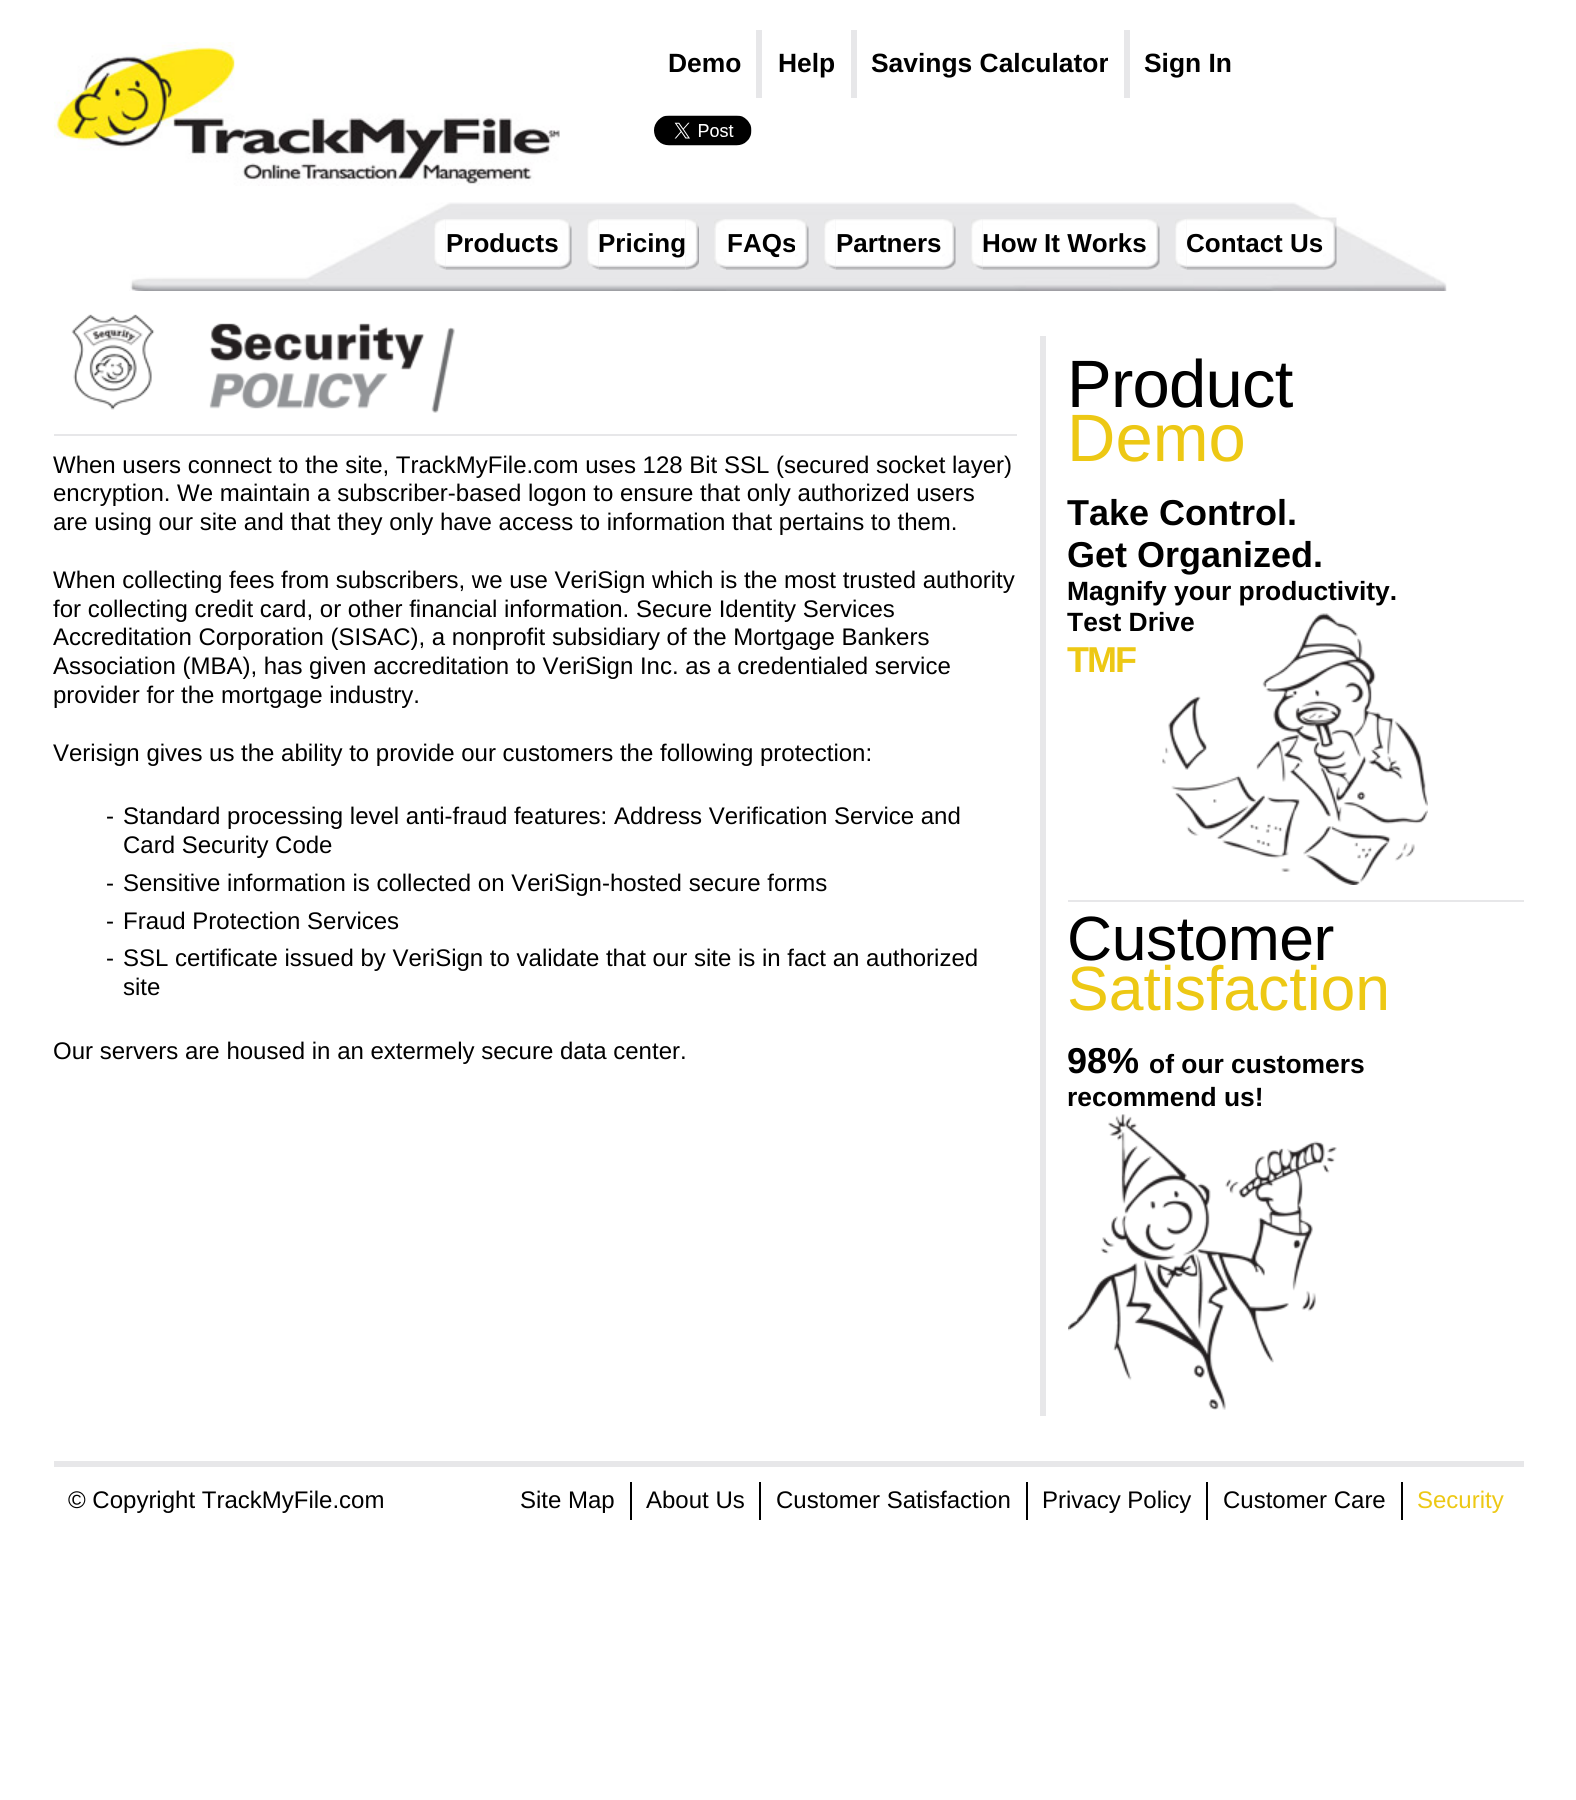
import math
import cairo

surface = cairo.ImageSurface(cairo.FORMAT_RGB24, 1576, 1800)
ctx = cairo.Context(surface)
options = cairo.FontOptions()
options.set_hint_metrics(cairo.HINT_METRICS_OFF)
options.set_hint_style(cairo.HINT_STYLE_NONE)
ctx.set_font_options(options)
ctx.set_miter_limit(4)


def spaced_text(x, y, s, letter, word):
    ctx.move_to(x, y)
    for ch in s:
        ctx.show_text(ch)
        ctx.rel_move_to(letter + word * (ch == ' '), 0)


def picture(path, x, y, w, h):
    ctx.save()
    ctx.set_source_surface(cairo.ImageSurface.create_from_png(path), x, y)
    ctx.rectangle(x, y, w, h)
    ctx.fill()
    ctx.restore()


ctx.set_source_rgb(1, 1, 1)
ctx.paint()
picture("img1.png", 54, 42, 506, 144)
ctx.select_font_face("Liberation Sans", cairo.FONT_SLANT_NORMAL, cairo.FONT_WEIGHT_BOLD)
ctx.set_font_size(26.4)
ctx.set_source_rgb(0, 0, 0)
ctx.move_to(668, 72)
ctx.show_text("Demo")
ctx.set_source_rgb(0.906, 0.906, 0.914)
ctx.rectangle(756, 30, 6, 68)
ctx.fill()
ctx.set_source_rgb(0, 0, 0)
ctx.move_to(778, 72)
ctx.show_text("Help")
ctx.set_source_rgb(0.906, 0.906, 0.914)
ctx.rectangle(851, 30, 6, 68)
ctx.fill()
ctx.set_source_rgb(0, 0, 0)
ctx.move_to(871, 72)
ctx.show_text("Savings Calculator")
ctx.set_source_rgb(0.906, 0.906, 0.914)
ctx.rectangle(1124, 30, 6, 68)
ctx.fill()
ctx.set_source_rgb(0, 0, 0)
ctx.move_to(1144, 72)
ctx.show_text("Sign In")
picture("img2.png", 654, 115, 98, 31)
picture("img3.png", 129, 202, 1318, 89)
picture("img4.png", 434, 219, 12, 51)
picture("img5.png", 445, 219, 113, 51)
ctx.set_font_size(26)
ctx.move_to(446, 252)
ctx.show_text("Products")
picture("img6.png", 558, 219, 14, 51)
picture("img4.png", 587, 219, 12, 51)
picture("img7.png", 598, 219, 88, 51)
ctx.move_to(598, 252)
ctx.show_text("Pricing")
picture("img8.png", 685, 219, 14, 51)
picture("img9.png", 714, 219, 12, 51)
picture("img10.png", 726, 219, 69, 51)
ctx.move_to(727, 252)
ctx.show_text("FAQs")
picture("img11.png", 795, 219, 14, 51)
picture("img12.png", 824, 219, 12, 51)
picture("img13.png", 835, 219, 107, 51)
ctx.move_to(836, 252)
ctx.show_text("Partners")
picture("img11.png", 942, 219, 14, 51)
picture("img12.png", 971, 219, 12, 51)
picture("img14.png", 982, 219, 164, 51)
ctx.move_to(982, 252)
ctx.show_text("How It Works")
picture("img6.png", 1146, 219, 14, 51)
picture("img4.png", 1175, 219, 12, 51)
picture("img15.png", 1186, 217, 137, 53)
ctx.move_to(1186, 252)
ctx.show_text("Contact Us")
picture("img16.png", 1323, 217, 14, 53)
picture("img17.png", 71, 314, 384, 99)
ctx.set_source_rgb(0.906, 0.906, 0.914)
ctx.rectangle(54, 434, 963, 2)
ctx.fill()
ctx.select_font_face("Liberation Sans")
ctx.set_font_size(24)
ctx.set_source_rgb(0, 0, 0)
ctx.move_to(53, 473)
ctx.show_text("When users connect to the site, TrackMyFile.com uses 128 Bit SSL (secured socket layer)")
ctx.move_to(53, 501)
ctx.show_text("encryption. We maintain a subscriber-based logon to ensure that only authorized users")
ctx.move_to(53, 530)
ctx.show_text("are using our site and that they only have access to information that pertains to them.")
ctx.move_to(53, 588)
ctx.show_text("When collecting fees from subscribers, we use VeriSign which is the most trusted authority")
ctx.move_to(53, 617)
ctx.show_text("for collecting credit card, or other financial information. Secure Identity Services")
ctx.move_to(53, 645)
ctx.show_text("Accreditation Corporation (SISAC), a nonprofit subsidiary of the Mortgage Bankers")
ctx.move_to(53, 674)
ctx.show_text("Association (MBA), has given accreditation to VeriSign Inc. as a credentialed service")
ctx.move_to(53, 703)
ctx.show_text("provider for the mortgage industry.")
ctx.move_to(53, 761)
ctx.show_text("Verisign gives us the ability to provide our customers the following protection:")
ctx.move_to(106, 824)
ctx.show_text("-")
ctx.move_to(123, 824)
ctx.show_text("Standard processing level anti-fraud features: Address Verification Service and")
ctx.move_to(123, 853)
ctx.show_text("Card Security Code")
ctx.move_to(106, 891)
ctx.show_text("-")
ctx.move_to(123, 891)
ctx.show_text("Sensitive information is collected on VeriSign-hosted secure forms")
ctx.move_to(106, 929)
ctx.show_text("-")
ctx.move_to(123, 929)
ctx.show_text("Fraud Protection Services")
ctx.move_to(106, 966)
ctx.show_text("-")
ctx.move_to(123, 966)
ctx.show_text("SSL certificate issued by VeriSign to validate that our site is in fact an authorized")
ctx.move_to(123, 995)
ctx.show_text("site")
ctx.move_to(53, 1059)
ctx.show_text("Our servers are housed in an extermely secure data center.")
ctx.set_source_rgb(0.906, 0.906, 0.914)
ctx.rectangle(1040, 336, 6, 1080)
ctx.fill()
picture("img18.png", 1162, 613, 266, 272)
ctx.set_font_size(67)
ctx.set_source_rgb(0, 0, 0)
spaced_text(1067, 407, "Product", -0.75, 0)
ctx.set_source_rgb(0.929, 0.784, 0.082)
ctx.move_to(1067, 461)
ctx.show_text("Demo")
ctx.select_font_face("Liberation Sans", cairo.FONT_SLANT_NORMAL, cairo.FONT_WEIGHT_BOLD)
ctx.set_font_size(36)
ctx.set_source_rgb(0, 0, 0)
ctx.move_to(1067, 525)
ctx.show_text("Take Control.")
ctx.move_to(1067, 567)
ctx.show_text("Get Organized.")
ctx.set_font_size(26.4)
ctx.move_to(1067, 600)
ctx.show_text("Magnify your productivity.")
ctx.move_to(1067, 631)
ctx.show_text("Test Drive")
ctx.set_font_size(36)
ctx.set_source_rgb(0.929, 0.784, 0.082)
spaced_text(1067, 672, "TMF", -2, 0)
ctx.set_source_rgb(0.906, 0.906, 0.914)
ctx.rectangle(1068, 900, 456, 2)
ctx.fill()
ctx.select_font_face("Liberation Sans")
ctx.set_font_size(62.5)
ctx.set_source_rgb(0, 0, 0)
spaced_text(1067, 960, "Customer", -0.5, 0)
ctx.set_source_rgb(0.929, 0.784, 0.082)
ctx.move_to(1067, 1010)
ctx.show_text("Satisfaction")
ctx.select_font_face("Liberation Sans", cairo.FONT_SLANT_NORMAL, cairo.FONT_WEIGHT_BOLD)
ctx.set_font_size(36)
ctx.set_source_rgb(0, 0, 0)
ctx.move_to(1067, 1073)
ctx.show_text("98%")
ctx.set_font_size(26.4)
ctx.move_to(1149, 1073)
ctx.show_text("of our customers")
ctx.move_to(1067, 1106)
ctx.show_text("recommend us!")
picture("img19.png", 1068, 1114, 269, 296)
ctx.set_source_rgb(0.906, 0.906, 0.914)
ctx.rectangle(54, 1461, 1470, 6)
ctx.fill()
ctx.select_font_face("Liberation Sans")
ctx.set_font_size(24)
ctx.set_source_rgb(0, 0, 0)
ctx.move_to(68, 1508)
ctx.show_text("© Copyright TrackMyFile.com")
ctx.move_to(520, 1508)
ctx.show_text("Site Map")
ctx.rectangle(630, 1482, 2, 38)
ctx.fill()
ctx.move_to(646, 1508)
ctx.show_text("About Us")
ctx.rectangle(759, 1482, 2, 38)
ctx.fill()
ctx.move_to(776, 1508)
ctx.show_text("Customer Satisfaction")
ctx.rectangle(1026, 1482, 2, 38)
ctx.fill()
ctx.move_to(1042, 1508)
ctx.show_text("Privacy Policy")
ctx.rectangle(1206, 1482, 2, 38)
ctx.fill()
ctx.move_to(1223, 1508)
ctx.show_text("Customer Care")
ctx.rectangle(1401, 1482, 2, 38)
ctx.fill()
ctx.set_source_rgb(0.929, 0.784, 0.082)
ctx.move_to(1417, 1508)
ctx.show_text("Security")
surface.write_to_png("page.png")
